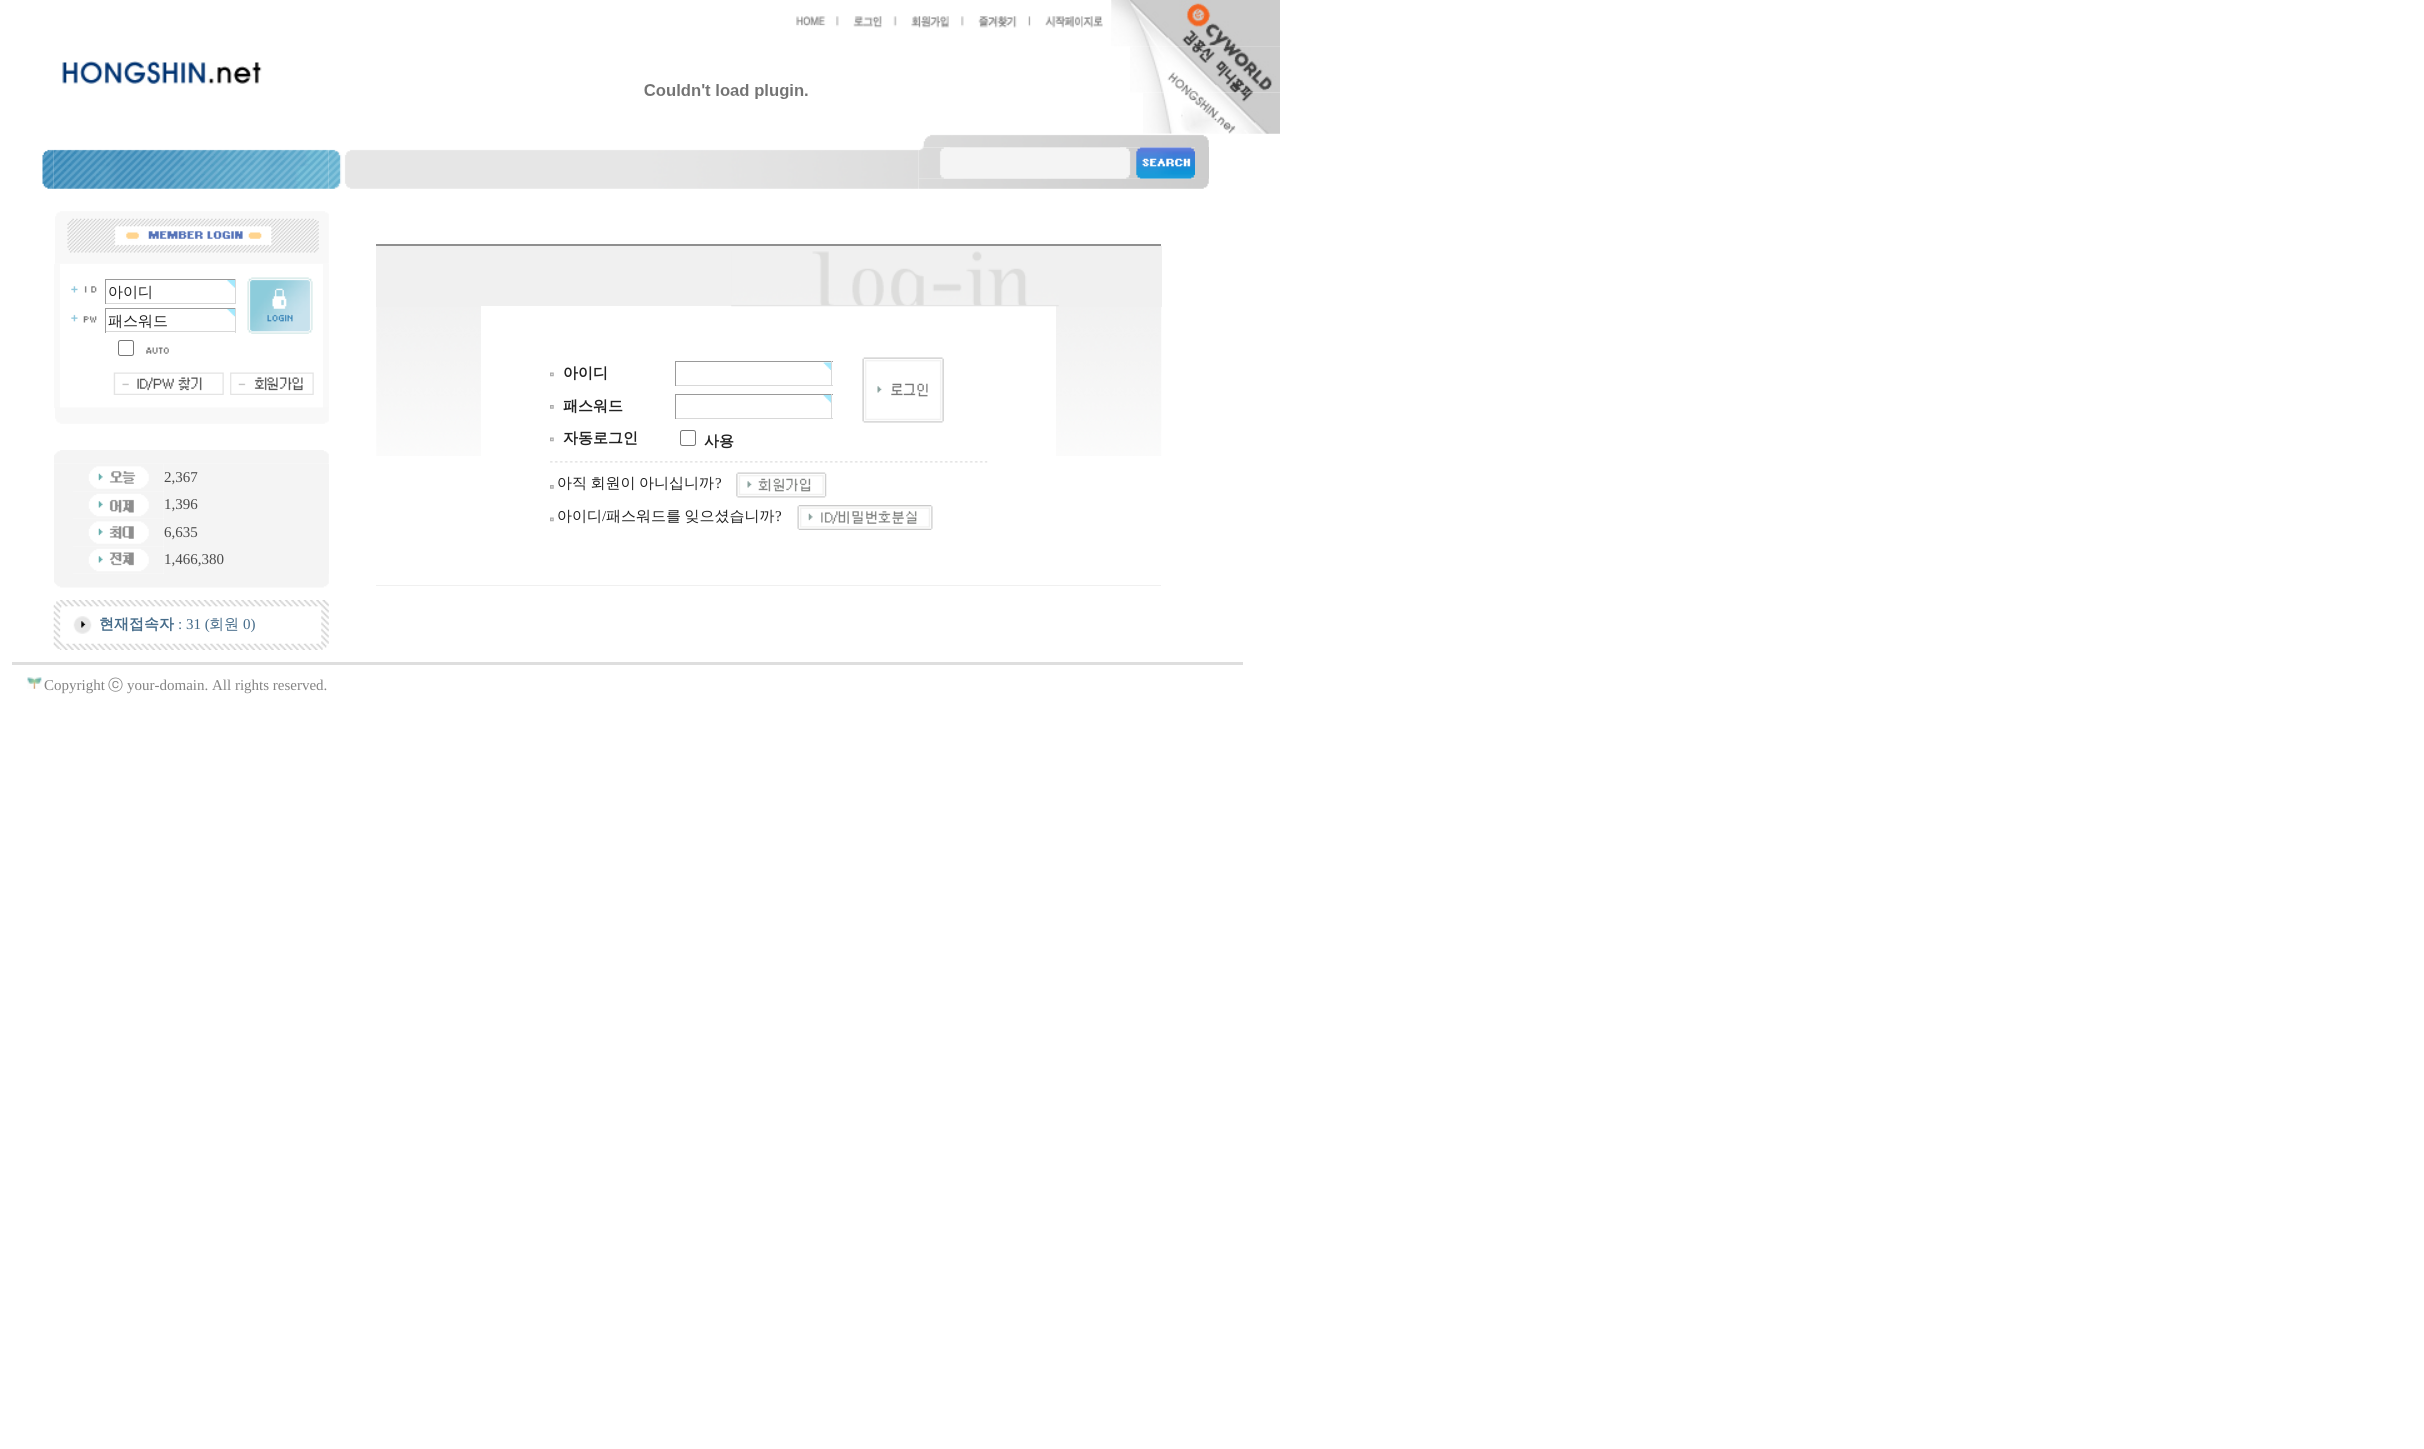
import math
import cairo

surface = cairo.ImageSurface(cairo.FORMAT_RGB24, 2424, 1449)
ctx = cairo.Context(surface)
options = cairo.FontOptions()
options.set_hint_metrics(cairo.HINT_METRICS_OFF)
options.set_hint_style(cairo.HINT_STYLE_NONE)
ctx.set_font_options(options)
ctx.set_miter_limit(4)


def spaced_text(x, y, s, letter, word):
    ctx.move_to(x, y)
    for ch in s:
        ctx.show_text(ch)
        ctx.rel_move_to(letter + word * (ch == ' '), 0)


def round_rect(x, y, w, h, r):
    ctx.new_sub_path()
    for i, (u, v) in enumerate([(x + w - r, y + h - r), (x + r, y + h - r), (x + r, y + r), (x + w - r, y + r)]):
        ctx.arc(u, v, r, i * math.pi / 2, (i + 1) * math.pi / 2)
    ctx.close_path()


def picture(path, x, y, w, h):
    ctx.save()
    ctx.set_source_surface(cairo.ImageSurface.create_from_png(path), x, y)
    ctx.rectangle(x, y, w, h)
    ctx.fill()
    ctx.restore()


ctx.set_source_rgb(1, 1, 1)
ctx.paint()
picture("img1.png", 796, 16, 43, 11)
picture("img2.png", 853, 16, 44, 12)
picture("img3.png", 911, 16, 53, 12)
picture("img4.png", 978, 16, 53, 12)
picture("img5.png", 1045, 16, 58, 12)
picture("img6.png", 1111, 0, 169, 47)
picture("img7.png", 62, 61, 200, 25)
picture("img8.png", 1130, 46, 150, 47)
picture("img9.png", 644, 84, 164, 15)
picture("img10.png", 1143, 92, 137, 42)
picture("img11.png", 922, 133, 287, 15)
picture("img12.png", 42, 149, 12, 40)
picture("img14.png", 328, 149, 591, 40)
picture("img13.png", 53, 149, 276, 40)
picture("img15.png", 919, 147, 31, 32)
ctx.set_source_rgb(0.957, 0.957, 0.957)
ctx.rectangle(950, 148, 170, 31)
ctx.fill()
picture("img16.png", 1120, 147, 15, 32)
picture("img17.png", 1135, 147, 60, 32)
ctx.set_source_rgb(0.804, 0.804, 0.804)
ctx.rectangle(1195, 147, 14, 32)
ctx.fill()
picture("img18.png", 919, 178, 290, 11)
picture("img19.png", 55, 211, 274, 53)
ctx.set_source_rgb(0.973, 0.973, 0.973)
ctx.rectangle(54, 264, 6, 144)
ctx.fill()
picture("img20.png", 71, 286, 26, 7)
picture("img21.png", 227, 280, 8, 8)
ctx.set_source_rgb(0.604, 0.604, 0.604)
ctx.rectangle(105, 279, 131, 1)
ctx.fill()
ctx.set_source_rgb(0.847, 0.847, 0.847)
ctx.rectangle(235, 279, 1, 25)
ctx.fill()
ctx.rectangle(105, 303, 131, 1)
ctx.fill()
ctx.set_source_rgb(0.604, 0.604, 0.604)
ctx.rectangle(105, 279, 1, 25)
ctx.fill()
ctx.select_font_face("WenQuanYi Zen Hei Medium")
ctx.set_font_size(15)
ctx.set_source_rgb(0.133, 0.133, 0.133)
ctx.move_to(108, 297)
ctx.show_text("아이디")
picture("img22.png", 71, 314, 26, 9)
picture("img23.png", 227, 309, 8, 8)
ctx.set_source_rgb(0.604, 0.604, 0.604)
ctx.rectangle(105, 308, 131, 1)
ctx.fill()
ctx.set_source_rgb(0.847, 0.847, 0.847)
ctx.rectangle(235, 308, 1, 25)
ctx.fill()
ctx.rectangle(105, 331, 131, 1)
ctx.fill()
ctx.set_source_rgb(0.604, 0.604, 0.604)
ctx.rectangle(105, 308, 1, 25)
ctx.fill()
ctx.set_source_rgb(0.133, 0.133, 0.133)
ctx.move_to(108, 326)
ctx.show_text("패스워드")
picture("img24.png", 247, 277, 66, 57)
round_rect(118.5, 340.5, 15, 15, 2)
ctx.set_source_rgb(0.463, 0.463, 0.463)
ctx.set_line_width(1)
ctx.stroke()
picture("img25.png", 146, 347, 23, 7)
picture("img26.png", 113, 372, 111, 23)
picture("img27.png", 230, 372, 84, 23)
ctx.set_source_rgb(0.973, 0.973, 0.973)
ctx.rectangle(323, 264, 6, 144)
ctx.fill()
picture("img28.png", 55, 407, 274, 17)
picture("img29.png", 54, 450, 275, 14)
ctx.set_source_rgb(0.957, 0.957, 0.957)
ctx.rectangle(54, 464, 19, 110)
ctx.fill()
picture("img30.png", 73, 464, 91, 27)
ctx.rectangle(164, 464, 165, 110)
ctx.fill()
ctx.select_font_face("Liberation Serif")
ctx.set_source_rgb(0.294, 0.294, 0.294)
ctx.move_to(164, 482)
ctx.show_text("2,367")
picture("img31.png", 73, 491, 91, 28)
ctx.move_to(164, 509)
ctx.show_text("1,396")
picture("img32.png", 73, 519, 91, 27)
ctx.move_to(164, 537)
ctx.show_text("6,635")
picture("img33.png", 73, 546, 91, 28)
ctx.move_to(164, 564)
ctx.show_text("1,466,380")
picture("img34.png", 54, 574, 275, 14)
picture("img35.png", 53, 600, 276, 50)
picture("img36.png", 73, 616, 19, 18)
ctx.select_font_face("WenQuanYi Zen Hei", cairo.FONT_SLANT_NORMAL, cairo.FONT_WEIGHT_BOLD)
ctx.set_source_rgb(0.275, 0.424, 0.541)
ctx.move_to(99, 629)
ctx.show_text("현재접속자")
ctx.select_font_face("Liberation Serif")
ctx.move_to(178, 629)
ctx.show_text(": 31 (")
ctx.select_font_face("WenQuanYi Zen Hei Medium")
ctx.move_to(209, 629)
ctx.show_text("회원")
ctx.select_font_face("Liberation Serif")
ctx.move_to(243, 629)
ctx.show_text("0)")
ctx.set_source_rgb(0.561, 0.561, 0.561)
ctx.rectangle(376, 244, 785, 2)
ctx.fill()
ctx.set_source_rgb(0.941, 0.941, 0.941)
ctx.rectangle(376, 246, 786, 61)
ctx.fill()
picture("img38.png", 376, 307, 786, 149)
ctx.set_source_rgb(1, 1, 1)
ctx.rectangle(481, 306, 575, 150)
ctx.fill()
picture("img37.png", 731, 251, 328, 56)
picture("img39.png", 550, 372, 4, 5)
ctx.select_font_face("WenQuanYi Zen Hei", cairo.FONT_SLANT_NORMAL, cairo.FONT_WEIGHT_BOLD)
ctx.set_source_rgb(0.133, 0.133, 0.133)
ctx.move_to(563, 378)
ctx.show_text("아이디")
picture("img40.png", 823, 362, 8, 8)
ctx.set_source_rgb(0.604, 0.604, 0.604)
ctx.rectangle(675, 361, 158, 1)
ctx.fill()
ctx.set_source_rgb(0.847, 0.847, 0.847)
ctx.rectangle(831, 361, 1, 25)
ctx.fill()
ctx.rectangle(675, 385, 158, 1)
ctx.fill()
ctx.set_source_rgb(0.604, 0.604, 0.604)
ctx.rectangle(675, 361, 1, 25)
ctx.fill()
picture("img41.png", 550, 405, 4, 4)
ctx.set_source_rgb(0.133, 0.133, 0.133)
ctx.move_to(563, 411)
ctx.show_text("패스워드")
picture("img42.png", 823, 395, 8, 8)
ctx.set_source_rgb(0.604, 0.604, 0.604)
ctx.rectangle(675, 394, 158, 1)
ctx.fill()
ctx.set_source_rgb(0.847, 0.847, 0.847)
ctx.rectangle(831, 394, 1, 25)
ctx.fill()
ctx.rectangle(675, 418, 158, 1)
ctx.fill()
ctx.set_source_rgb(0.604, 0.604, 0.604)
ctx.rectangle(675, 394, 1, 25)
ctx.fill()
picture("img39.png", 550, 437, 4, 5)
ctx.set_source_rgb(0.133, 0.133, 0.133)
ctx.move_to(563, 443)
ctx.show_text("자동로그인")
round_rect(680.5, 430.5, 15, 15, 2)
ctx.set_source_rgb(0.463, 0.463, 0.463)
ctx.stroke()
ctx.set_source_rgb(0.133, 0.133, 0.133)
ctx.move_to(704, 446)
ctx.show_text("사용")
picture("img43.png", 862, 357, 82, 66)
picture("img44.png", 550, 461, 438, 2)
picture("img41.png", 550, 485, 4, 4)
ctx.select_font_face("WenQuanYi Zen Hei Medium")
spaced_text(557, 488, "아직 회원이 아니십니까", 0, -1)
ctx.select_font_face("Liberation Serif")
ctx.move_to(715, 488)
ctx.show_text("?")
picture("img45.png", 736, 472, 91, 26)
picture("img39.png", 550, 517, 4, 5)
ctx.select_font_face("WenQuanYi Zen Hei Medium")
ctx.move_to(557, 521)
ctx.show_text("아이디")
ctx.select_font_face("Liberation Serif")
ctx.move_to(602, 521)
ctx.show_text("/")
ctx.select_font_face("WenQuanYi Zen Hei Medium")
spaced_text(606, 521, "패스워드를 잊으셨습니까", 0, -1)
ctx.select_font_face("Liberation Serif")
ctx.move_to(775, 521)
ctx.show_text("?")
picture("img46.png", 797, 505, 136, 25)
ctx.set_source_rgb(0.941, 0.941, 0.941)
ctx.rectangle(376, 585, 785, 1)
ctx.fill()
ctx.set_source_rgb(0.871, 0.871, 0.871)
ctx.rectangle(12, 662, 1231, 3)
ctx.fill()
picture("img47.png", 27, 677, 15, 12)
ctx.set_source_rgb(0.518, 0.518, 0.518)
ctx.move_to(44, 690)
ctx.show_text("Copyright")
ctx.select_font_face("WenQuanYi Zen Hei Medium")
ctx.move_to(108, 690)
ctx.show_text("ⓒ")
ctx.select_font_face("Liberation Serif")
ctx.move_to(127, 690)
ctx.show_text("your-domain. All rights reserved.")
surface.write_to_png("page.png")
